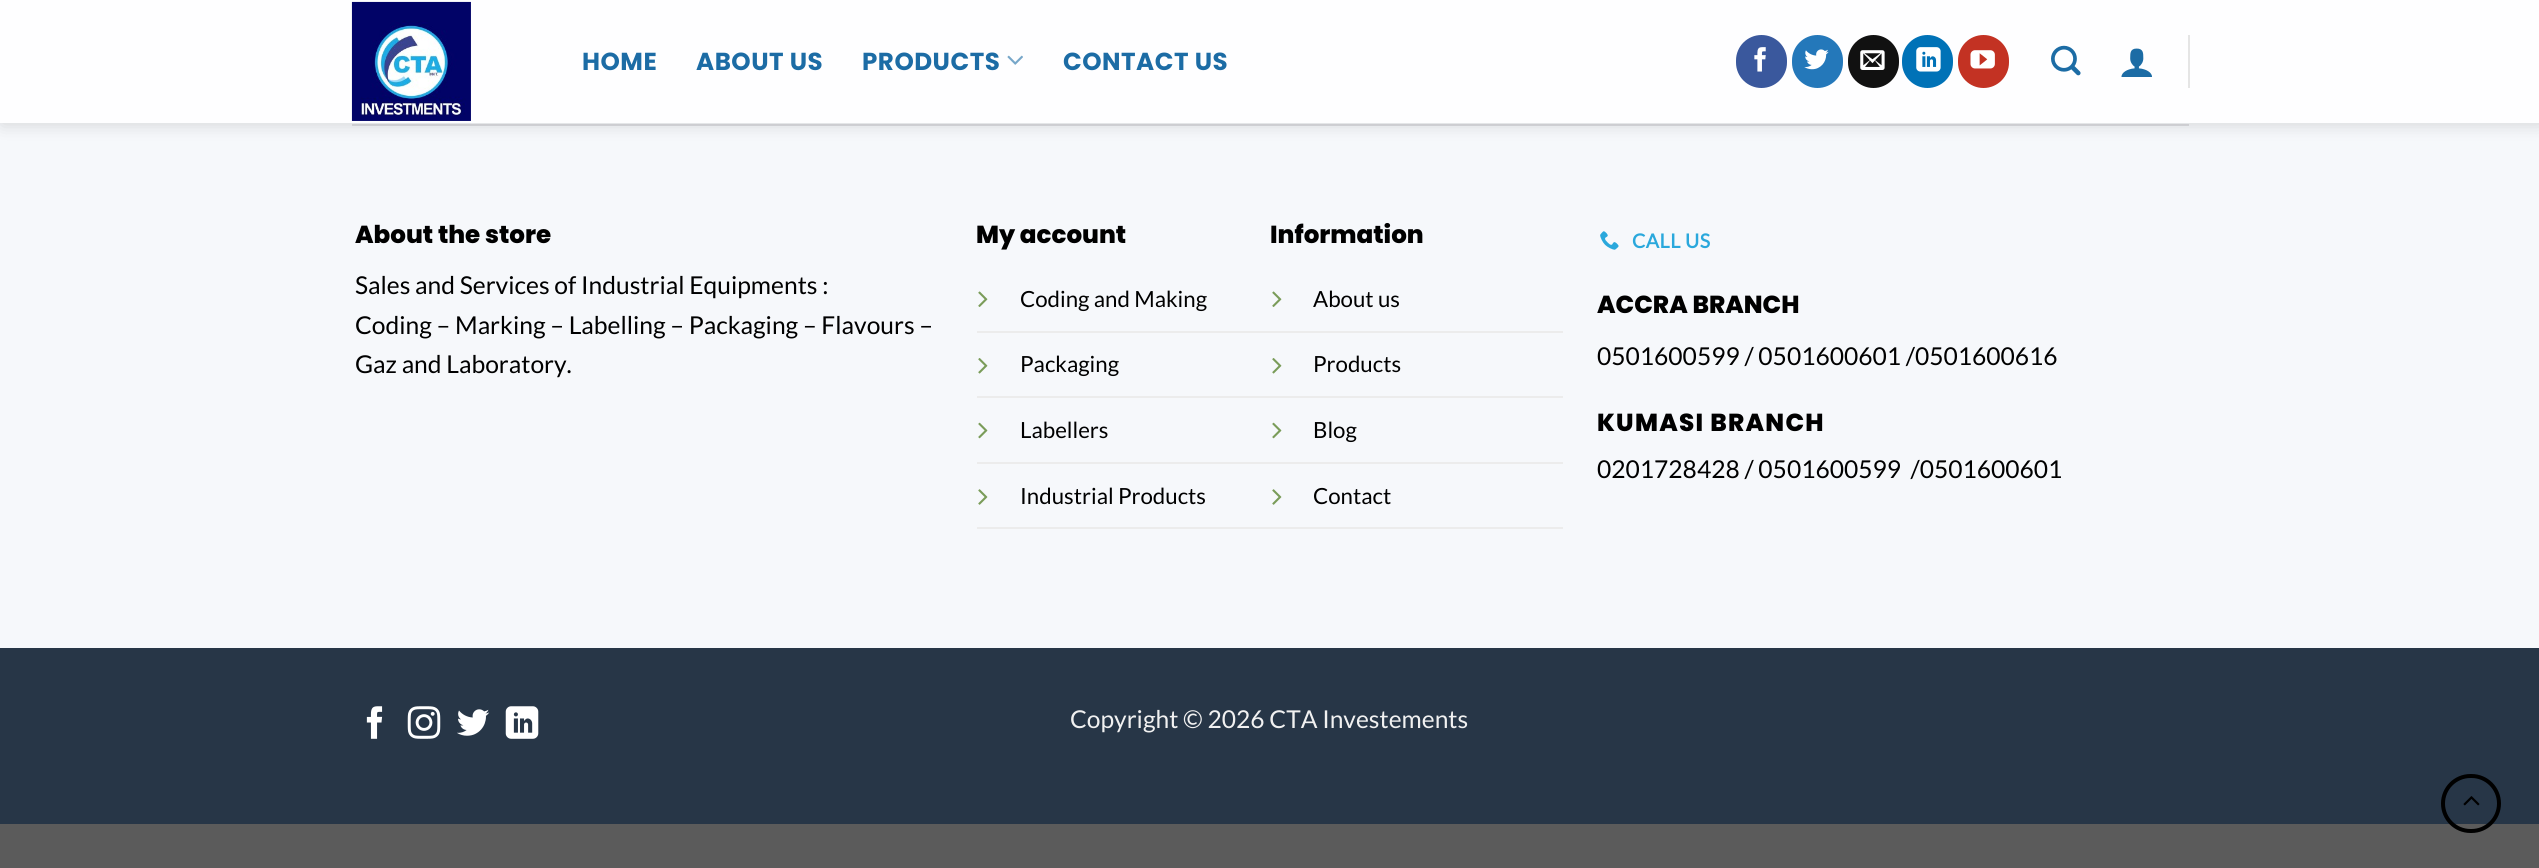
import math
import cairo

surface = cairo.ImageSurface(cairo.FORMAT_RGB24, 2539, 868)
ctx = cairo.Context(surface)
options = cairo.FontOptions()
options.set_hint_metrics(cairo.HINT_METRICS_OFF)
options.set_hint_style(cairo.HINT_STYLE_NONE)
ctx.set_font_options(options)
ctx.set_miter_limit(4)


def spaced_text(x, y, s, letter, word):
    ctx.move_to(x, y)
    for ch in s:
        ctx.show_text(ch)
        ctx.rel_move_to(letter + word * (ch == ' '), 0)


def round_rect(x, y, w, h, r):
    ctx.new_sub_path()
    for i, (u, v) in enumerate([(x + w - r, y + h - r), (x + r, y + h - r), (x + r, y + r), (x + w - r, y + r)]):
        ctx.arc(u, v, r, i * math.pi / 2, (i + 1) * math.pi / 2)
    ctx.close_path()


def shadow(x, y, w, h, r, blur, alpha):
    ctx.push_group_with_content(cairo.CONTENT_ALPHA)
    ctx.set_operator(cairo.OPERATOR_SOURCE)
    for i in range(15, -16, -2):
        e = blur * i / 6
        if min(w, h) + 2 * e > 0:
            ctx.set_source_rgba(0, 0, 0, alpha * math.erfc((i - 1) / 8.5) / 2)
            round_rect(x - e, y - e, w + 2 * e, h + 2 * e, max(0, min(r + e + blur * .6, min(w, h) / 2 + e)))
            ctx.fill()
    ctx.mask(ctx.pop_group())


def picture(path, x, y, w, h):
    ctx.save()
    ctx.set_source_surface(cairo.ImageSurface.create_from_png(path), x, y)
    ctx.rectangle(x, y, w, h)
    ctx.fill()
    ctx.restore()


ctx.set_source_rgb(0.357, 0.357, 0.357)
ctx.paint()
ctx.set_source_rgb(0.961, 0.969, 0.984)
ctx.rectangle(0, 0, 2539, 648)
ctx.fill()
ctx.set_source_rgb(0.867, 0.871, 0.886)
ctx.rectangle(352, 124, 1837, 2)
ctx.fill()
ctx.save()
ctx.set_fill_rule(cairo.FILL_RULE_EVEN_ODD)
ctx.new_path()
ctx.move_to(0, 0)
ctx.line_to(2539, 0)
ctx.line_to(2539, 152)
ctx.line_to(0, 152)
ctx.close_path()
ctx.move_to(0, 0)
ctx.line_to(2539, 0)
ctx.line_to(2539, 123)
ctx.line_to(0, 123)
ctx.close_path()
ctx.clip()
ctx.set_source_rgb(0, 0, 0)
shadow(2, 2, 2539, 122, 0, 9, 0.15)
ctx.restore()
ctx.set_source_rgba(1, 1, 1, 0.9)
ctx.rectangle(0, 0, 2539, 123)
ctx.fill()
picture("img1.png", 351, 1, 120, 120)
ctx.select_font_face("Poppins", cairo.FONT_SLANT_NORMAL, cairo.FONT_WEIGHT_BOLD)
ctx.set_font_size(24.6)
ctx.set_source_rgb(0.11, 0.424, 0.647)
spaced_text(582, 70, "HOME", 0.5, 0)
spaced_text(696, 70, "ABOUT US", 0.5, 0)
spaced_text(862, 70, "PRODUCTS", 0.5, 0)
picture("img2.png", 1007, 55, 16, 10)
spaced_text(1063, 70, "CONTACT US", 0.5, 0)
ctx.set_source_rgb(0.227, 0.345, 0.616)
round_rect(1737, 36, 49, 51, 24.5)
ctx.fill_preserve()
ctx.stroke()
picture("img3.png", 1754, 47, 12, 25)
ctx.set_source_rgb(0.141, 0.471, 0.729)
round_rect(1793, 36, 49, 51, 24.5)
ctx.fill_preserve()
ctx.stroke()
picture("img4.png", 1804, 49, 25, 21)
ctx.set_source_rgb(0.067, 0.067, 0.067)
round_rect(1849, 36, 49, 51, 24.5)
ctx.fill_preserve()
ctx.stroke()
picture("img5.png", 1860, 50, 25, 20)
ctx.set_source_rgb(0, 0.447, 0.718)
round_rect(1903, 36, 49, 51, 24.5)
ctx.fill_preserve()
ctx.stroke()
picture("img6.png", 1916, 47, 25, 25)
ctx.set_source_rgb(0.765, 0.196, 0.137)
round_rect(1959, 36, 49, 51, 24.5)
ctx.fill_preserve()
ctx.stroke()
picture("img7.png", 1970, 50, 25, 19)
picture("img8.png", 2051, 45, 30, 31)
picture("img9.png", 2121, 48, 31, 29)
ctx.set_source_rgb(0.898, 0.898, 0.898)
ctx.rectangle(2188, 35, 2, 53)
ctx.fill()
ctx.select_font_face("Poppins ExtraBold")
ctx.set_source_rgb(0, 0, 0)
ctx.move_to(355, 243)
ctx.show_text("About the store")
ctx.select_font_face("Lato")
ctx.move_to(355, 294)
ctx.show_text("Sales and Services of Industrial Equipments :")
ctx.move_to(355, 334)
ctx.show_text("Coding – Marking – Labelling – Packaging – Flavours –")
ctx.move_to(355, 373)
ctx.show_text("Gaz and Laboratory.")
ctx.select_font_face("Poppins ExtraBold")
ctx.move_to(976, 243)
ctx.show_text("My account")
ctx.set_source_rgb(0.925, 0.925, 0.925)
ctx.rectangle(977, 331, 586, 2)
ctx.fill()
picture("img10.png", 978, 291, 10, 16)
ctx.select_font_face("Lato")
ctx.set_font_size(22.25)
ctx.set_source_rgb(0, 0, 0)
ctx.move_to(1020, 307)
ctx.show_text("Coding and Making")
ctx.set_source_rgb(0.925, 0.925, 0.925)
ctx.rectangle(977, 396, 586, 2)
ctx.fill()
picture("img11.png", 978, 358, 10, 16)
ctx.set_source_rgb(0, 0, 0)
ctx.move_to(1020, 372)
ctx.show_text("Packaging")
ctx.set_source_rgb(0.925, 0.925, 0.925)
ctx.rectangle(977, 462, 586, 2)
ctx.fill()
picture("img12.png", 978, 422, 10, 17)
ctx.set_source_rgb(0, 0, 0)
ctx.move_to(1020, 438)
ctx.show_text("Labellers")
ctx.set_source_rgb(0.925, 0.925, 0.925)
ctx.rectangle(977, 527, 586, 2)
ctx.fill()
picture("img13.png", 978, 489, 10, 16)
ctx.set_source_rgb(0, 0, 0)
ctx.move_to(1020, 504)
ctx.show_text("Industrial Products")
ctx.select_font_face("Poppins ExtraBold")
ctx.set_font_size(24.6)
ctx.move_to(1270, 243)
ctx.show_text("Information")
picture("img10.png", 1272, 291, 10, 16)
ctx.select_font_face("Lato")
ctx.set_font_size(22.25)
ctx.move_to(1313, 307)
ctx.show_text("About us")
picture("img11.png", 1272, 358, 10, 16)
ctx.move_to(1313, 372)
ctx.show_text("Products")
picture("img12.png", 1272, 422, 10, 17)
ctx.move_to(1313, 438)
ctx.show_text("Blog")
picture("img13.png", 1272, 489, 10, 16)
ctx.move_to(1313, 504)
ctx.show_text("Contact")
picture("img14.png", 1600, 231, 19, 19)
ctx.select_font_face("Lato", cairo.FONT_SLANT_NORMAL, cairo.FONT_WEIGHT_BOLD)
ctx.set_font_size(19.5)
ctx.set_source_rgb(0.165, 0.659, 0.863)
spaced_text(1632, 248, "CALL US", 0.5, 0)
ctx.select_font_face("Poppins ExtraBold")
ctx.set_font_size(24.6)
ctx.set_source_rgb(0, 0, 0)
ctx.move_to(1597, 313)
ctx.show_text("ACCRA BRANCH")
ctx.select_font_face("Lato")
ctx.move_to(1597, 365)
ctx.show_text("0501600599 / 0501600601 /0501600616")
ctx.select_font_face("Poppins ExtraBold")
spaced_text(1597, 431, "KUMASI BRANCH", 1.25, 0)
ctx.select_font_face("Lato")
ctx.move_to(1597, 478)
ctx.show_text("0201728428 / 0501600599  /0501600601")
ctx.set_source_rgb(0.153, 0.212, 0.278)
ctx.rectangle(0, 648, 2539, 176)
ctx.fill()
picture("img15.png", 366, 706, 17, 33)
picture("img16.png", 407, 706, 34, 33)
picture("img17.png", 457, 709, 33, 27)
picture("img18.png", 505, 706, 34, 33)
ctx.set_source_rgb(0.945, 0.945, 0.945)
ctx.move_to(1070, 728)
ctx.show_text("Copyright © 2026 CTA Investements")
round_rect(2443, 776, 56, 55, 27.5)
ctx.set_source_rgb(0, 0, 0)
ctx.set_line_width(4)
ctx.stroke()
picture("img19.png", 2463, 796, 17, 10)
surface.write_to_png("page.png")
